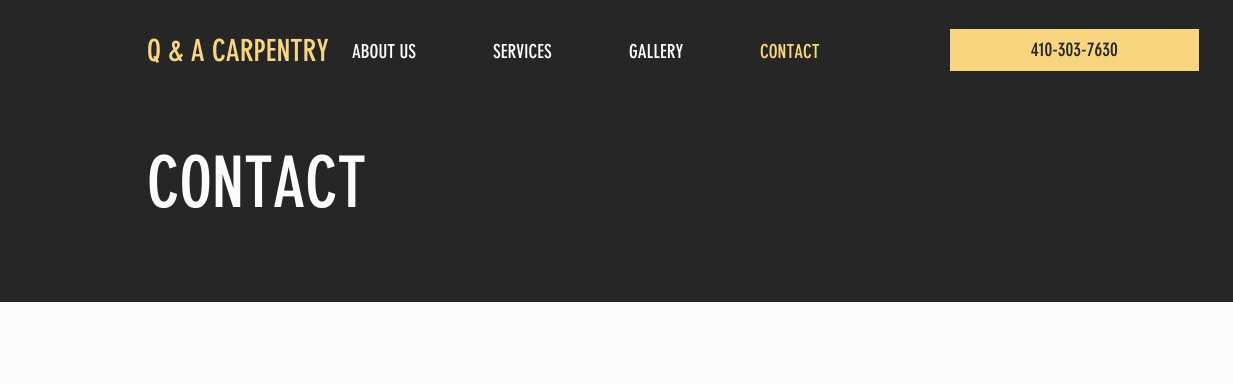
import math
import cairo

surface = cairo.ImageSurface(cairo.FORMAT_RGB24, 1233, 384)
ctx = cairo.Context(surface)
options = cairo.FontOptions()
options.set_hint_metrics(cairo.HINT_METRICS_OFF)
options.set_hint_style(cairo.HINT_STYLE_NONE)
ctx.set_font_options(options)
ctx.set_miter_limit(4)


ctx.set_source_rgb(0.149, 0.149, 0.149)
ctx.paint()
ctx.select_font_face("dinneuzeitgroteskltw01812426")
ctx.set_font_size(30)
ctx.set_source_rgb(0.969, 0.835, 0.498)
ctx.move_to(147, 61)
ctx.show_text("Q & A CARPENTRY")
ctx.set_font_size(19)
ctx.set_source_rgb(0.988, 0.988, 0.988)
ctx.move_to(352, 58)
ctx.show_text("ABOUT US")
ctx.move_to(493, 58)
ctx.show_text("SERVICES")
ctx.move_to(629, 58)
ctx.show_text("GALLERY")
ctx.set_source_rgb(0.969, 0.835, 0.498)
ctx.move_to(760, 58)
ctx.show_text("CONTACT")
ctx.rectangle(950, 29, 249, 42)
ctx.fill()
ctx.set_source_rgb(0.149, 0.149, 0.149)
ctx.move_to(1031, 56)
ctx.show_text("410-303-7630")
ctx.set_font_size(70)
ctx.set_source_rgb(0.988, 0.988, 0.988)
ctx.move_to(147, 207)
ctx.show_text("CONTACT")
ctx.rectangle(0, 302, 1233, 82)
ctx.fill()
surface.write_to_png("page.png")
